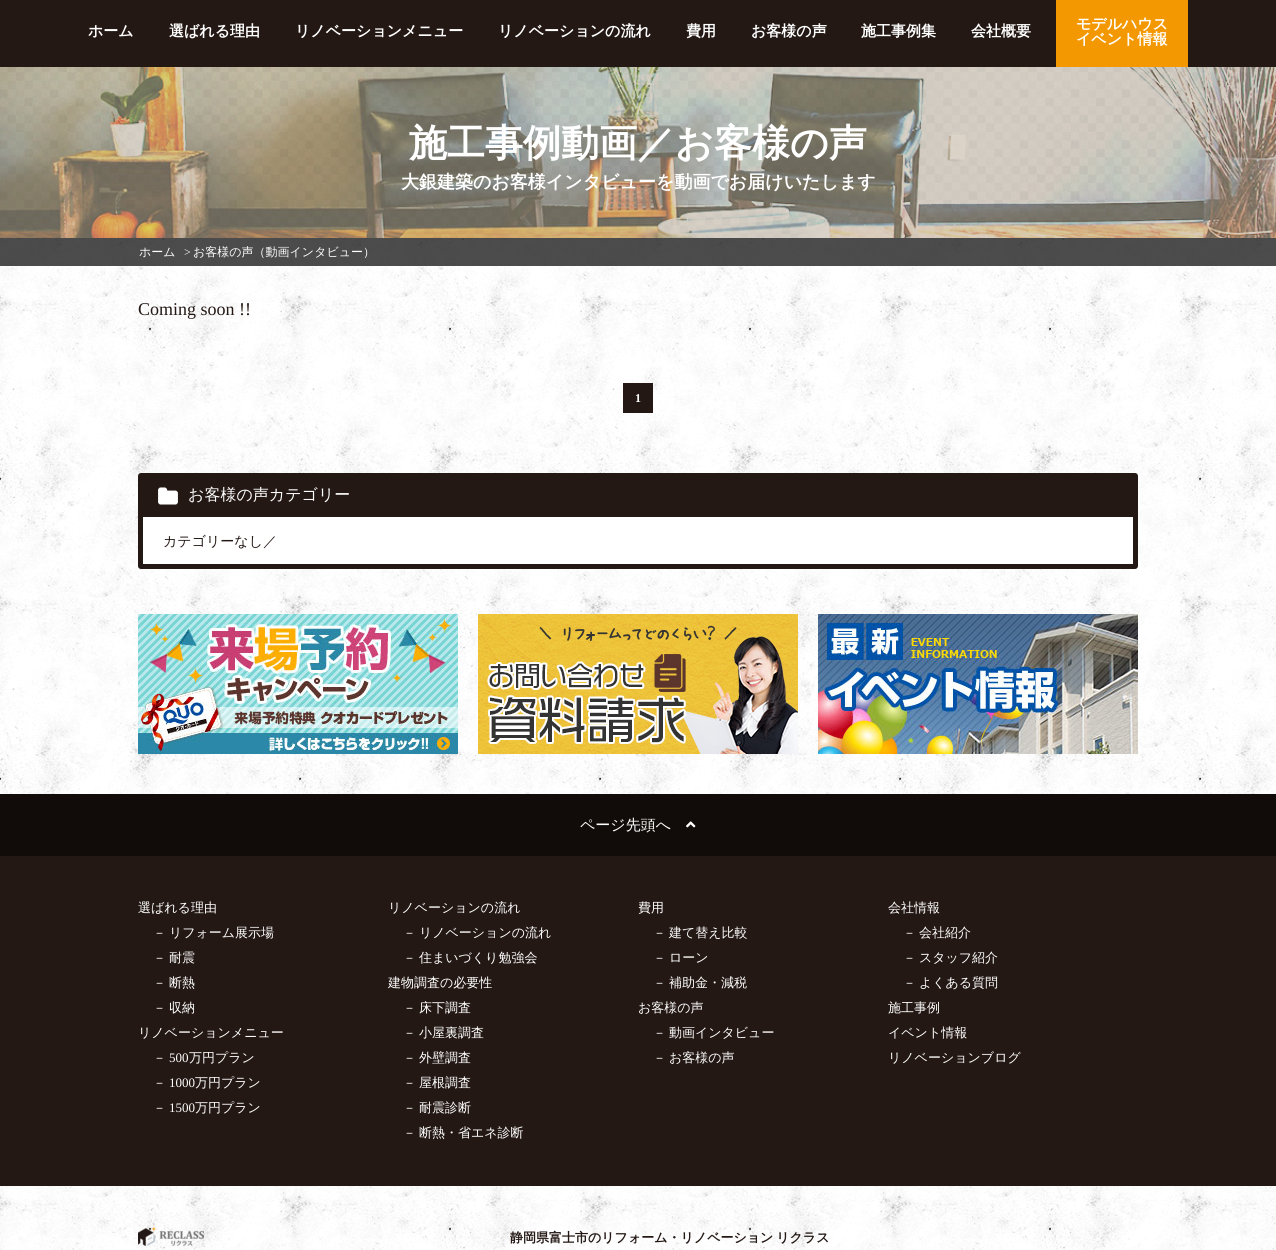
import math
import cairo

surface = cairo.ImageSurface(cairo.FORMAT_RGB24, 1276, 1250)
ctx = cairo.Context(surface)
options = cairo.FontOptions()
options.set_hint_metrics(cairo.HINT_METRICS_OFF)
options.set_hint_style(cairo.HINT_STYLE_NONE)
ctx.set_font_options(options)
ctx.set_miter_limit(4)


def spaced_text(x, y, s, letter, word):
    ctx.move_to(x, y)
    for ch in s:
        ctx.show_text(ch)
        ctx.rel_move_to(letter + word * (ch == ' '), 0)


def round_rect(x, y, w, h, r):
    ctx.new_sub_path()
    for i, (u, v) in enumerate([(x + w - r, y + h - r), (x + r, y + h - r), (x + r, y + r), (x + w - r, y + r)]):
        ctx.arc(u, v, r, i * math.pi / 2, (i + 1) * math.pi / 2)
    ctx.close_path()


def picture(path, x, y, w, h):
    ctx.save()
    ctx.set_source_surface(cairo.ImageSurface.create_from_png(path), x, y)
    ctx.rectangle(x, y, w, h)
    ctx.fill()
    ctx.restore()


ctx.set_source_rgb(1, 1, 1)
ctx.paint()
picture("img1.png", 0, 238, 1276, 1012)
ctx.set_source_rgb(0.137, 0.094, 0.082)
ctx.rectangle(0, 0, 1276, 67)
ctx.fill()
ctx.select_font_face("WenQuanYi Zen Hei", cairo.FONT_SLANT_NORMAL, cairo.FONT_WEIGHT_BOLD)
ctx.set_font_size(15)
ctx.set_source_rgb(1, 1, 1)
ctx.move_to(88, 36)
ctx.show_text("ホーム")
ctx.move_to(169, 36)
ctx.show_text("選ばれる理由")
ctx.move_to(295, 36)
ctx.show_text("リノベーションメニュー")
ctx.move_to(498, 36)
ctx.show_text("リノベーションの流れ")
ctx.move_to(686, 36)
ctx.show_text("費用")
ctx.move_to(751, 36)
ctx.show_text("お客様の声")
ctx.move_to(861, 36)
ctx.show_text("施工事例集")
ctx.move_to(971, 36)
ctx.show_text("会社概要")
ctx.set_source_rgb(0.953, 0.596, 0)
ctx.rectangle(1056, 0, 132, 67)
ctx.fill()
ctx.set_source_rgb(1, 1, 1)
ctx.move_to(1076, 29)
ctx.show_text("モデルハウス")
ctx.move_to(1076, 44)
ctx.show_text("イベント情報")
picture("img2.png", 0, 67, 1276, 171)
ctx.set_font_size(38)
ctx.move_to(409, 156)
ctx.show_text("施工事例動画／お客様の声")
ctx.set_font_size(18)
ctx.move_to(401, 188)
ctx.show_text("大銀建築のお客様インタビューを動画でお届けいたします")
ctx.set_source_rgba(0, 0, 0, 0.7)
ctx.rectangle(0, 238, 1276, 28)
ctx.fill()
ctx.select_font_face("WenQuanYi Zen Hei Medium")
ctx.set_font_size(12)
ctx.set_source_rgb(1, 1, 1)
ctx.move_to(139, 256)
ctx.show_text("ホーム")
ctx.select_font_face("Liberation Serif")
ctx.move_to(184, 256)
ctx.show_text(">")
ctx.select_font_face("WenQuanYi Zen Hei Medium")
ctx.move_to(193, 256)
ctx.show_text("お客様の声（動画インタビュー）")
ctx.select_font_face("Liberation Serif")
ctx.set_font_size(18)
ctx.set_source_rgb(0.137, 0.094, 0.082)
ctx.move_to(138, 315)
ctx.show_text("Coming soon !!")
ctx.rectangle(623, 383, 30, 30)
ctx.fill()
ctx.select_font_face("Liberation Serif", cairo.FONT_SLANT_NORMAL, cairo.FONT_WEIGHT_BOLD)
ctx.set_font_size(12)
ctx.set_source_rgb(1, 1, 1)
ctx.move_to(635, 402)
ctx.show_text("1")
ctx.set_source_rgb(0.137, 0.094, 0.082)
round_rect(138, 473, 1000, 96, 3)
ctx.fill()
picture("img3.png", 158, 487, 20, 18)
ctx.select_font_face("WenQuanYi Zen Hei Medium")
ctx.set_font_size(16)
ctx.set_source_rgb(1, 1, 1)
ctx.move_to(188, 500)
ctx.show_text("お客様の声カテゴリー")
ctx.rectangle(143, 517, 990, 47)
ctx.fill()
ctx.set_font_size(14)
ctx.set_source_rgb(0.137, 0.094, 0.082)
ctx.move_to(163, 546)
ctx.show_text("カテゴリーなし／")
picture("img4.png", 138, 614, 320, 140)
picture("img5.png", 478, 614, 320, 140)
picture("img6.png", 818, 614, 320, 140)
ctx.set_source_rgb(0.067, 0.047, 0.039)
ctx.rectangle(0, 794, 1276, 62)
ctx.fill()
ctx.set_font_size(15)
ctx.set_source_rgb(1, 1, 1)
ctx.move_to(580, 830)
ctx.show_text("ページ先頭へ")
picture("img7.png", 686, 821, 10, 7)
ctx.set_source_rgb(0.137, 0.094, 0.082)
ctx.rectangle(0, 856, 1276, 330)
ctx.fill()
ctx.set_font_size(13)
ctx.set_source_rgb(1, 1, 1)
ctx.move_to(138, 912)
ctx.show_text("選ばれる理由")
spaced_text(153, 937, "－ リフォーム展示場", 0, -1)
spaced_text(153, 962, "－ 耐震", 0, -1)
spaced_text(153, 987, "－ 断熱", 0, -1)
spaced_text(153, 1012, "－ 収納", 0, -1)
ctx.move_to(138, 1037)
ctx.show_text("リノベーションメニュー")
ctx.move_to(153, 1062)
ctx.show_text("－")
ctx.select_font_face("Liberation Serif")
ctx.move_to(169, 1062)
ctx.show_text("500")
ctx.select_font_face("WenQuanYi Zen Hei Medium")
ctx.move_to(189, 1062)
ctx.show_text("万円プラン")
ctx.move_to(153, 1087)
ctx.show_text("－")
ctx.select_font_face("Liberation Serif")
ctx.move_to(169, 1087)
ctx.show_text("1000")
ctx.select_font_face("WenQuanYi Zen Hei Medium")
ctx.move_to(195, 1087)
ctx.show_text("万円プラン")
ctx.move_to(153, 1112)
ctx.show_text("－")
ctx.select_font_face("Liberation Serif")
ctx.move_to(169, 1112)
ctx.show_text("1500")
ctx.select_font_face("WenQuanYi Zen Hei Medium")
ctx.move_to(195, 1112)
ctx.show_text("万円プラン")
ctx.move_to(388, 912)
ctx.show_text("リノベーションの流れ")
spaced_text(403, 937, "－ リノベーションの流れ", 0, -1)
spaced_text(403, 962, "－ 住まいづくり勉強会", 0, -1)
ctx.move_to(388, 987)
ctx.show_text("建物調査の必要性")
spaced_text(403, 1012, "－ 床下調査", 0, -1)
spaced_text(403, 1037, "－ 小屋裏調査", 0, -1)
spaced_text(403, 1062, "－ 外壁調査", 0, -1)
spaced_text(403, 1087, "－ 屋根調査", 0, -1)
spaced_text(403, 1112, "－ 耐震診断", 0, -1)
spaced_text(403, 1137, "－ 断熱・省エネ診断", 0, -1)
ctx.move_to(638, 912)
ctx.show_text("費用")
spaced_text(653, 937, "－ 建て替え比較", 0, -1)
spaced_text(653, 962, "－ ローン", 0, -1)
spaced_text(653, 987, "－ 補助金・減税", 0, -1)
ctx.move_to(638, 1012)
ctx.show_text("お客様の声")
spaced_text(653, 1037, "－ 動画インタビュー", 0, -1)
spaced_text(653, 1062, "－ お客様の声", 0, -1)
ctx.move_to(888, 912)
ctx.show_text("会社情報")
spaced_text(903, 937, "－ 会社紹介", 0, -1)
spaced_text(903, 962, "－ スタッフ紹介", 0, -1)
spaced_text(903, 987, "－ よくある質問", 0, -1)
ctx.move_to(888, 1012)
ctx.show_text("施工事例")
ctx.move_to(888, 1037)
ctx.show_text("イベント情報")
ctx.move_to(888, 1062)
ctx.show_text("リノベーションブログ")
picture("img8.png", 138, 1226, 66, 20)
ctx.select_font_face("WenQuanYi Zen Hei", cairo.FONT_SLANT_NORMAL, cairo.FONT_WEIGHT_BOLD)
ctx.set_source_rgb(0.137, 0.094, 0.082)
spaced_text(510, 1242, "静岡県富士市のリフォーム・リノベーション リクラス", 0, -1)
surface.write_to_png("page.png")
